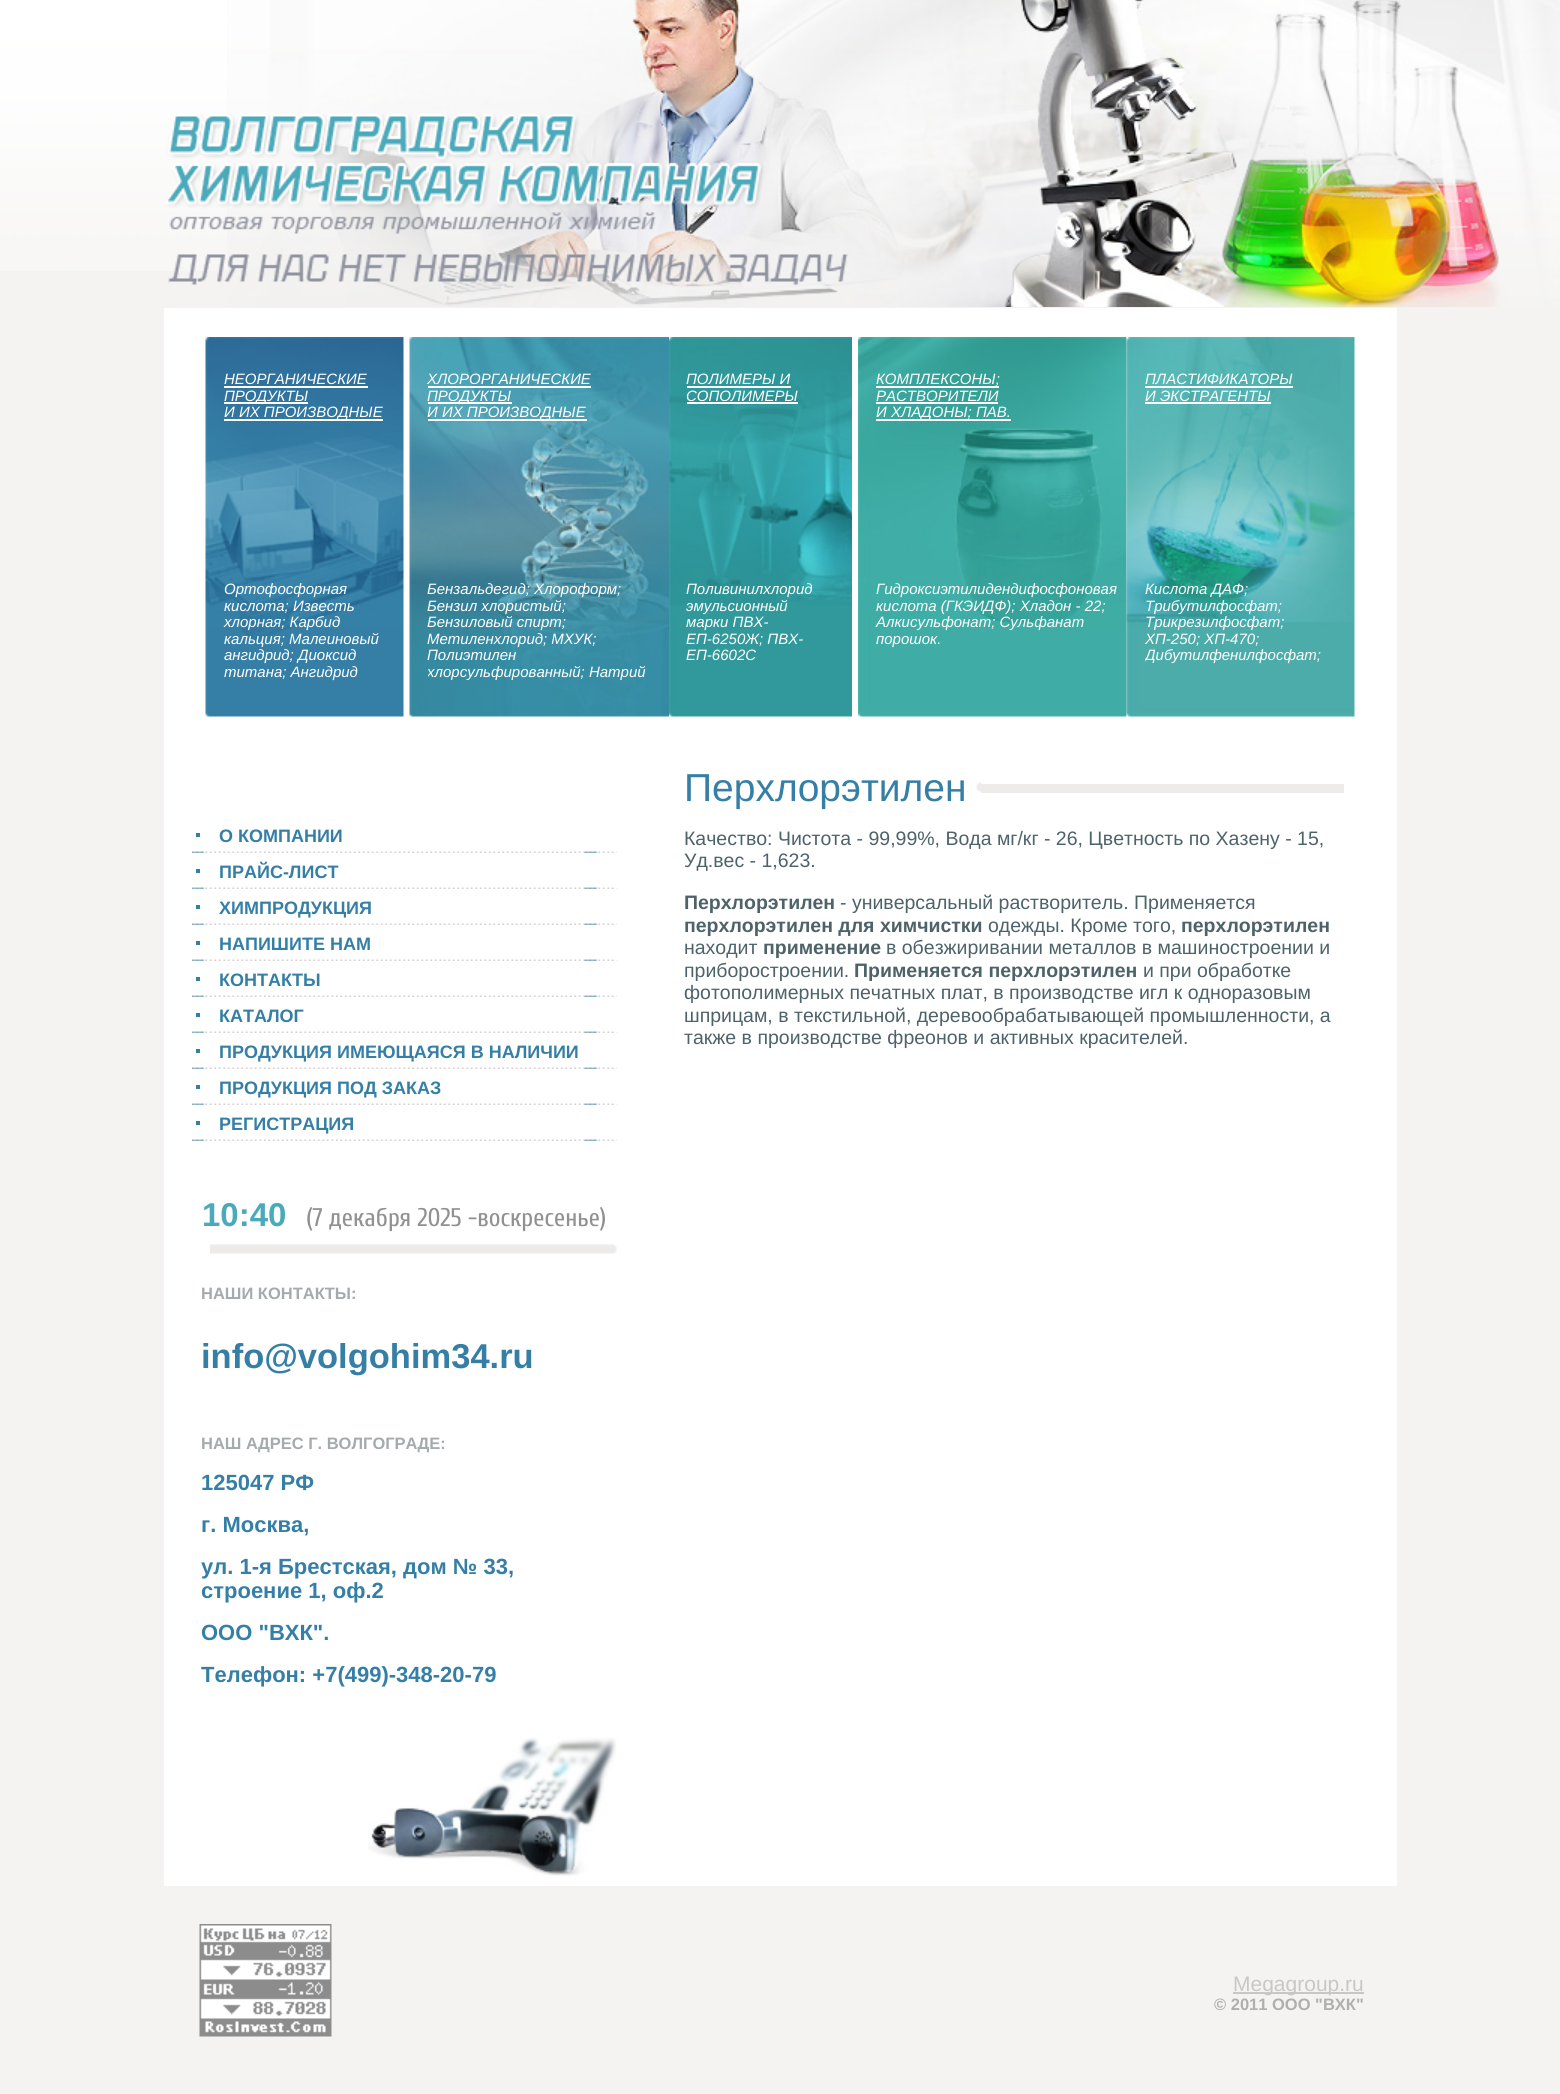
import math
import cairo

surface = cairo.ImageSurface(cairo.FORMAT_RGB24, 1560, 2094)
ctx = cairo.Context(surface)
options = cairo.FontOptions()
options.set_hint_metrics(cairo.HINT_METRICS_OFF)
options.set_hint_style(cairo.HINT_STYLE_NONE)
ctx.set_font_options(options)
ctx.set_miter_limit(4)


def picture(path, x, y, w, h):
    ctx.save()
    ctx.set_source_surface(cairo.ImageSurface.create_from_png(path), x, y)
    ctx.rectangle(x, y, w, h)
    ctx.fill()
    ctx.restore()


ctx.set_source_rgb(0.957, 0.953, 0.945)
ctx.paint()
picture("img1.png", 0, 0, 227, 271)
picture("img2.png", 227, 0, 1333, 307)
picture("img3.png", 166, 114, 682, 171)
ctx.set_source_rgb(1, 1, 1)
ctx.rectangle(164, 308, 1233, 1578)
ctx.fill()
picture("img4.png", 205, 337, 199, 380)
ctx.select_font_face("Liberation Sans", cairo.FONT_SLANT_ITALIC)
ctx.set_font_size(15)
ctx.move_to(224, 384)
ctx.show_text("НЕОРГАНИЧЕСКИЕ")
ctx.rectangle(224, 386, 144, 2)
ctx.fill()
ctx.rectangle(224, 402, 84, 2)
ctx.fill()
ctx.move_to(224, 401)
ctx.show_text("ПРОДУКТЫ")
ctx.rectangle(224, 419, 159, 2)
ctx.fill()
ctx.move_to(224, 417)
ctx.show_text("И ИХ ПРОИЗВОДНЫЕ")
ctx.move_to(224, 594)
ctx.show_text("Ортофосфорная")
ctx.move_to(224, 611)
ctx.show_text("кислота; Известь")
ctx.move_to(224, 627)
ctx.show_text("хлорная; Карбид")
ctx.move_to(224, 644)
ctx.show_text("кальция; Малеиновый")
ctx.move_to(224, 660)
ctx.show_text("ангидрид; Диоксид")
ctx.move_to(224, 677)
ctx.show_text("титана; Ангидрид")
picture("img5.png", 409, 337, 260, 380)
ctx.move_to(427, 384)
ctx.show_text("ХЛОРОРГАНИЧЕСКИЕ")
ctx.rectangle(428, 386, 163, 2)
ctx.fill()
ctx.rectangle(428, 402, 84, 2)
ctx.fill()
ctx.move_to(427, 401)
ctx.show_text("ПРОДУКТЫ")
ctx.rectangle(428, 419, 159, 2)
ctx.fill()
ctx.move_to(427, 417)
ctx.show_text("И ИХ ПРОИЗВОДНЫЕ")
ctx.move_to(427, 594)
ctx.show_text("Бензальдегид; Хлороформ;")
ctx.move_to(427, 611)
ctx.show_text("Бензил хлористый;")
ctx.move_to(427, 627)
ctx.show_text("Бензиловый спирт;")
ctx.move_to(427, 644)
ctx.show_text("Метиленхлорид; МХУК;")
ctx.move_to(427, 660)
ctx.show_text("Полиэтилен")
ctx.save()
ctx.rectangle(428, 566, 228, 114)
ctx.clip()
ctx.move_to(427, 677)
ctx.show_text("хлорсульфированный; Натрий")
ctx.restore()
picture("img6.png", 669, 337, 183, 380)
ctx.move_to(686, 384)
ctx.show_text("ПОЛИМЕРЫ И")
ctx.rectangle(687, 386, 104, 2)
ctx.fill()
ctx.move_to(686, 401)
ctx.show_text("СОПОЛИМЕРЫ")
ctx.rectangle(687, 402, 111, 2)
ctx.fill()
ctx.move_to(686, 594)
ctx.show_text("Поливинилхлорид")
ctx.move_to(686, 611)
ctx.show_text("эмульсионный")
ctx.move_to(686, 627)
ctx.show_text("марки ПВХ-")
ctx.move_to(686, 644)
ctx.show_text("ЕП-6250Ж; ПВХ-")
ctx.move_to(686, 660)
ctx.show_text("ЕП-6602С")
picture("img7.png", 858, 337, 269, 380)
ctx.move_to(876, 384)
ctx.show_text("КОМПЛЕКСОНЫ;")
ctx.rectangle(876, 386, 123, 2)
ctx.fill()
ctx.move_to(876, 401)
ctx.show_text("РАСТВОРИТЕЛИ")
ctx.rectangle(876, 402, 122, 2)
ctx.fill()
ctx.rectangle(876, 419, 135, 2)
ctx.fill()
ctx.move_to(876, 417)
ctx.show_text("И ХЛАДОНЫ; ПАВ.")
ctx.move_to(876, 594)
ctx.show_text("Гидроксиэтилидендифосфоновая")
ctx.move_to(876, 611)
ctx.show_text("кислота (ГКЭИДФ); Хладон - 22;")
ctx.move_to(876, 627)
ctx.show_text("Алкисульфонат; Сульфанат")
ctx.move_to(876, 644)
ctx.show_text("порошок.")
picture("img8.png", 1126, 337, 229, 380)
ctx.move_to(1145, 384)
ctx.show_text("ПЛАСТИФИКАТОРЫ")
ctx.rectangle(1145, 386, 148, 2)
ctx.fill()
ctx.move_to(1145, 401)
ctx.show_text("И ЭКСТРАГЕНТЫ")
ctx.rectangle(1145, 402, 126, 2)
ctx.fill()
ctx.move_to(1145, 594)
ctx.show_text("Кислота ДАФ;")
ctx.move_to(1145, 611)
ctx.show_text("Трибутилфосфат;")
ctx.move_to(1145, 627)
ctx.show_text("Трикрезилфосфат;")
ctx.move_to(1145, 644)
ctx.show_text("ХП-250; ХП-470;")
ctx.save()
ctx.rectangle(1145, 566, 192, 114)
ctx.clip()
ctx.move_to(1145, 660)
ctx.show_text("Дибутилфенилфосфат;")
ctx.restore()
picture("img9.png", 192, 851, 425, 2)
ctx.set_source_rgb(0.208, 0.498, 0.651)
ctx.rectangle(196, 833, 4, 4)
ctx.fill()
ctx.select_font_face("Liberation Sans", cairo.FONT_SLANT_NORMAL, cairo.FONT_WEIGHT_BOLD)
ctx.set_font_size(18)
ctx.move_to(219, 842)
ctx.show_text("О КОМПАНИИ")
picture("img9.png", 192, 887, 425, 2)
ctx.rectangle(196, 869, 4, 4)
ctx.fill()
ctx.move_to(219, 878)
ctx.show_text("ПРАЙС-ЛИСТ")
picture("img10.png", 192, 923, 425, 2)
ctx.rectangle(196, 905, 4, 4)
ctx.fill()
ctx.move_to(219, 914)
ctx.show_text("ХИМПРОДУКЦИЯ")
picture("img10.png", 192, 959, 425, 2)
ctx.rectangle(196, 941, 4, 4)
ctx.fill()
ctx.move_to(219, 950)
ctx.show_text("НАПИШИТЕ НАМ")
picture("img10.png", 192, 995, 425, 2)
ctx.rectangle(196, 977, 4, 4)
ctx.fill()
ctx.move_to(219, 986)
ctx.show_text("КОНТАКТЫ")
picture("img9.png", 192, 1031, 425, 2)
ctx.rectangle(196, 1013, 4, 4)
ctx.fill()
ctx.move_to(219, 1022)
ctx.show_text("КАТАЛОГ")
picture("img10.png", 192, 1067, 425, 2)
ctx.rectangle(196, 1049, 4, 4)
ctx.fill()
ctx.move_to(219, 1058)
ctx.show_text("ПРОДУКЦИЯ ИМЕЮЩАЯСЯ В НАЛИЧИИ")
picture("img10.png", 192, 1103, 425, 2)
ctx.rectangle(196, 1085, 4, 4)
ctx.fill()
ctx.move_to(219, 1094)
ctx.show_text("ПРОДУКЦИЯ ПОД ЗАКАЗ")
picture("img9.png", 192, 1139, 425, 2)
ctx.rectangle(196, 1121, 4, 4)
ctx.fill()
ctx.move_to(219, 1130)
ctx.show_text("РЕГИСТРАЦИЯ")
picture("img11.png", 210, 1244, 407, 10)
ctx.set_font_size(33)
ctx.set_source_rgb(0.29, 0.663, 0.729)
ctx.move_to(202, 1226)
ctx.show_text("10:40")
ctx.select_font_face("Cuprum")
ctx.set_font_size(25.5)
ctx.set_source_rgb(0.569, 0.569, 0.569)
ctx.move_to(306, 1226)
ctx.show_text("(7 декабря 2025 -воскресенье)")
picture("img12.png", 368, 1737, 249, 140)
ctx.select_font_face("Liberation Sans", cairo.FONT_SLANT_NORMAL, cairo.FONT_WEIGHT_BOLD)
ctx.set_font_size(16.5)
ctx.set_source_rgb(0.647, 0.667, 0.675)
ctx.move_to(201, 1299)
ctx.show_text("НАШИ КОНТАКТЫ:")
ctx.set_font_size(34.5)
ctx.set_source_rgb(0.208, 0.498, 0.651)
ctx.move_to(201, 1368)
ctx.show_text("info@volgohim34.ru")
ctx.set_font_size(16.5)
ctx.set_source_rgb(0.647, 0.667, 0.675)
ctx.move_to(201, 1449)
ctx.show_text("НАШ АДРЕС Г. ВОЛГОГРАДЕ:")
ctx.set_font_size(22)
ctx.set_source_rgb(0.208, 0.498, 0.651)
ctx.move_to(201, 1490)
ctx.show_text("125047 РФ")
ctx.move_to(201, 1532)
ctx.show_text("г. Москва,")
ctx.move_to(201, 1574)
ctx.show_text("ул. 1-я Брестская, дом № 33,")
ctx.move_to(201, 1598)
ctx.show_text("строение 1, оф.2")
ctx.move_to(201, 1640)
ctx.show_text("ООО \"ВХК\".")
ctx.move_to(201, 1682)
ctx.show_text("Телефон: +7(499)-348-20-79")
ctx.set_source_rgb(0.929, 0.922, 0.914)
ctx.rectangle(981, 784, 363, 9)
ctx.fill()
ctx.select_font_face("Liberation Sans")
ctx.set_font_size(39)
ctx.set_source_rgb(0.208, 0.498, 0.651)
ctx.move_to(684, 801)
ctx.show_text("Перхлорэтилен")
picture("img13.png", 976, 782, 5, 10)
ctx.set_font_size(19.5)
ctx.set_source_rgb(0.302, 0.388, 0.412)
ctx.move_to(684, 845)
ctx.show_text("Качество: Чистота - 99,99%, Вода мг/кг - 26, Цветность по Хазену - 15,")
ctx.move_to(684, 867)
ctx.show_text("Уд.вес - 1,623.")
ctx.select_font_face("Liberation Sans", cairo.FONT_SLANT_NORMAL, cairo.FONT_WEIGHT_BOLD)
ctx.move_to(684, 909)
ctx.show_text("Перхлорэтилен")
ctx.select_font_face("Liberation Sans")
ctx.move_to(840, 909)
ctx.show_text("- универсальный растворитель. Применяется")
ctx.select_font_face("Liberation Sans", cairo.FONT_SLANT_NORMAL, cairo.FONT_WEIGHT_BOLD)
ctx.move_to(684, 932)
ctx.show_text("перхлорэтилен для химчистки")
ctx.select_font_face("Liberation Sans")
ctx.move_to(988, 932)
ctx.show_text("одежды. Кроме того,")
ctx.select_font_face("Liberation Sans", cairo.FONT_SLANT_NORMAL, cairo.FONT_WEIGHT_BOLD)
ctx.move_to(1181, 932)
ctx.show_text("перхлорэтилен")
ctx.select_font_face("Liberation Sans")
ctx.move_to(684, 954)
ctx.show_text("находит")
ctx.select_font_face("Liberation Sans", cairo.FONT_SLANT_NORMAL, cairo.FONT_WEIGHT_BOLD)
ctx.move_to(763, 954)
ctx.show_text("применение")
ctx.select_font_face("Liberation Sans")
ctx.move_to(886, 954)
ctx.show_text("в обезжиривании металлов в машиностроении и")
ctx.move_to(684, 977)
ctx.show_text("приборостроении.")
ctx.select_font_face("Liberation Sans", cairo.FONT_SLANT_NORMAL, cairo.FONT_WEIGHT_BOLD)
ctx.move_to(854, 977)
ctx.show_text("Применяется перхлорэтилен")
ctx.select_font_face("Liberation Sans")
ctx.move_to(1143, 977)
ctx.show_text("и при обработке")
ctx.move_to(684, 999)
ctx.show_text("фотополимерных печатных плат, в производстве игл к одноразовым")
ctx.move_to(684, 1022)
ctx.show_text("шприцам, в текстильной, деревообрабатывающей промышленности, а")
ctx.move_to(684, 1044)
ctx.show_text("также в производстве фреонов и активных красителей.")
picture("img14.png", 199, 1924, 133, 113)
ctx.set_source_rgb(0.78, 0.78, 0.776)
ctx.rectangle(1233, 1992, 131, 2)
ctx.fill()
ctx.set_font_size(21)
ctx.move_to(1233, 1991)
ctx.show_text("Megagroup.ru")
ctx.select_font_face("Liberation Sans", cairo.FONT_SLANT_NORMAL, cairo.FONT_WEIGHT_BOLD)
ctx.set_font_size(16.5)
ctx.set_source_rgb(0.686, 0.686, 0.682)
ctx.move_to(1214, 2010)
ctx.show_text("© 2011 ООО \"ВХК\"")
surface.write_to_png("page.png")
